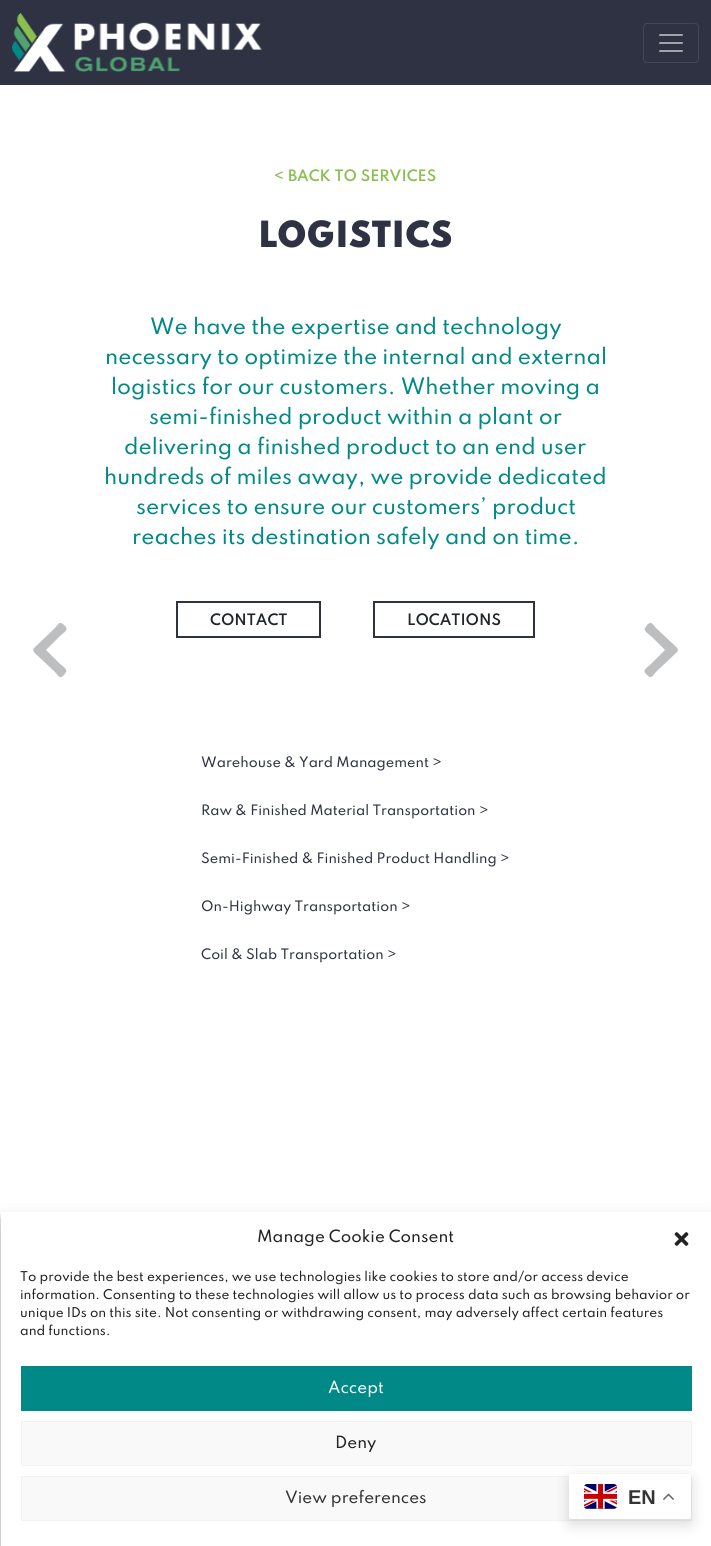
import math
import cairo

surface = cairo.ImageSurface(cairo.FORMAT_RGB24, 711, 1546)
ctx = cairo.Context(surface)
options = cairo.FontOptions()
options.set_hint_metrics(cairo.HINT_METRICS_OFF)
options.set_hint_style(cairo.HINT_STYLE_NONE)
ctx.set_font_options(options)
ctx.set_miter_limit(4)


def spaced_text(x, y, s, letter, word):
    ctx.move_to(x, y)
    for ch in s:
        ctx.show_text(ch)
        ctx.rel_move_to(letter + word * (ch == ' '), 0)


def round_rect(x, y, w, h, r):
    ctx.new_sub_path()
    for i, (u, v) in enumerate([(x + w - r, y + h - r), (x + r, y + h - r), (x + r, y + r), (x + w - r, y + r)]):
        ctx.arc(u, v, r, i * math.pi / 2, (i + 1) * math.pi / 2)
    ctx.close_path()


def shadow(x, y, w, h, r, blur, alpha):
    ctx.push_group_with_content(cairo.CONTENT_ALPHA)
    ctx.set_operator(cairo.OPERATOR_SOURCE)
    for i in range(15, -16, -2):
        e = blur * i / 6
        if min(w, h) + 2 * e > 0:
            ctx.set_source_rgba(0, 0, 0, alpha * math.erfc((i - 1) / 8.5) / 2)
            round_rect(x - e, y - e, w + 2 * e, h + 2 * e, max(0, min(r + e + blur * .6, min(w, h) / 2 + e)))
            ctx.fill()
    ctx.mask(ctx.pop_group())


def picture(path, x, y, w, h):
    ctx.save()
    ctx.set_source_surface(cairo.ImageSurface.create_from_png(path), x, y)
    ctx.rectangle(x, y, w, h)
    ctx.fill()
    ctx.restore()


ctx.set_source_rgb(1, 1, 1)
ctx.paint()
ctx.set_source_rgb(0.18, 0.196, 0.263)
ctx.rectangle(0, 0, 711, 85)
ctx.fill()
picture("img1.png", 12, 13, 250, 59)
round_rect(643.5, 23.5, 55, 39, 3.5)
ctx.set_source_rgb(0.263, 0.278, 0.337)
ctx.set_line_width(1)
ctx.stroke()
picture("img2.png", 659, 34, 24, 18)
ctx.set_source_rgb(0.737, 0.745, 0.749)
ctx.new_path()
ctx.move_to(34, 648)
ctx.line_to(55, 628)
ctx.curve_to(59, 623, 60, 621, 64, 625)
ctx.curve_to(70, 630, 64, 632, 59, 637)
ctx.line_to(46, 650)
ctx.line_to(59, 663)
ctx.curve_to(61, 665, 68, 669, 66, 672)
ctx.line_to(64, 675)
ctx.curve_to(60, 679, 59, 677, 55, 672)
ctx.line_to(38, 656)
ctx.curve_to(37, 655, 31, 651, 34, 648)
ctx.close_path()
ctx.fill()
ctx.select_font_face("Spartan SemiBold")
ctx.set_font_size(14)
ctx.set_source_rgb(0.541, 0.753, 0.31)
ctx.move_to(274, 181)
ctx.show_text("< BACK TO SERVICES")
ctx.select_font_face("Spartan Black")
ctx.set_font_size(32)
ctx.set_source_rgb(0.18, 0.196, 0.263)
spaced_text(258, 247, "LOGISTICS", 1, 0)
ctx.select_font_face("Spartan Medium")
ctx.set_font_size(20)
ctx.set_source_rgb(0, 0.537, 0.529)
ctx.move_to(150, 334)
ctx.show_text("We have the expertise and technology")
ctx.move_to(105, 364)
ctx.show_text("necessary to optimize the internal and external")
ctx.move_to(111, 394)
ctx.show_text("logistics for our customers. Whether moving a")
ctx.move_to(149, 424)
ctx.show_text("semi-finished product within a plant or")
ctx.move_to(124, 454)
ctx.show_text("delivering a finished product to an end user")
ctx.move_to(104, 484)
ctx.show_text("hundreds of miles away, we provide dedicated")
ctx.move_to(136, 514)
ctx.show_text("services to ensure our customers’ product")
ctx.move_to(132, 544)
ctx.show_text("reaches its destination safely and on time.")
ctx.rectangle(177, 602, 143, 35)
ctx.set_source_rgb(0.18, 0.196, 0.263)
ctx.set_line_width(2)
ctx.stroke()
ctx.select_font_face("Spartan SemiBold")
ctx.set_font_size(14)
ctx.set_source_rgb(0.129, 0.145, 0.161)
ctx.move_to(210, 625)
ctx.show_text("CONTACT")
ctx.rectangle(374, 602, 160, 35)
ctx.set_source_rgb(0.18, 0.196, 0.263)
ctx.stroke()
ctx.set_source_rgb(0.129, 0.145, 0.161)
ctx.move_to(407, 625)
ctx.show_text("LOCATIONS")
ctx.select_font_face("Spartan Medium")
ctx.set_font_size(12.8)
ctx.set_source_rgb(0.18, 0.196, 0.263)
ctx.move_to(201, 767)
ctx.show_text("Warehouse & Yard Management >")
ctx.move_to(201, 815)
ctx.show_text("Raw & Finished Material Transportation >")
ctx.move_to(201, 863)
ctx.show_text("Semi-Finished & Finished Product Handling >")
ctx.move_to(201, 911)
ctx.show_text("On-Highway Transportation >")
ctx.move_to(201, 959)
ctx.show_text("Coil & Slab Transportation >")
ctx.set_source_rgb(0.737, 0.745, 0.749)
ctx.new_path()
ctx.move_to(677, 652)
ctx.line_to(656, 672)
ctx.curve_to(652, 677, 651, 679, 647, 675)
ctx.curve_to(641, 670, 647, 668, 652, 663)
ctx.line_to(665, 650)
ctx.line_to(652, 637)
ctx.curve_to(650, 635, 643, 631, 645, 628)
ctx.line_to(647, 625)
ctx.curve_to(651, 621, 652, 623, 656, 628)
ctx.line_to(673, 644)
ctx.curve_to(674, 645, 680, 649, 677, 652)
ctx.close_path()
ctx.fill()
ctx.set_source_rgb(0, 0, 0)
shadow(1, 1218, 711, 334, 0, 3, 0.23)
shadow(1, 1222, 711, 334, 0, 10, 0.19)
ctx.set_source_rgb(1, 1, 1)
ctx.rectangle(1, 1212, 710, 334)
ctx.fill()
ctx.set_font_size(15)
ctx.set_source_rgb(0.133, 0.133, 0.133)
ctx.move_to(257, 1242)
ctx.show_text("Manage Cookie Consent")
picture("img3.png", 674, 1232, 15, 14)
ctx.set_font_size(12)
ctx.move_to(20, 1281)
ctx.show_text("To provide the best experiences, we use technologies like cookies to store and/or access device")
ctx.move_to(20, 1299)
ctx.show_text("information. Consenting to these technologies will allow us to process data such as browsing behavior or")
ctx.move_to(20, 1317)
ctx.show_text("unique IDs on this site. Not consenting or withdrawing consent, may adversely affect certain features")
ctx.move_to(20, 1335)
ctx.show_text("and functions.")
ctx.set_source_rgb(0, 0.537, 0.529)
ctx.rectangle(21, 1366, 671, 45)
ctx.fill()
ctx.set_font_size(15)
ctx.set_source_rgb(1, 1, 1)
ctx.move_to(328, 1393)
ctx.show_text("Accept")
ctx.set_source_rgb(0.976, 0.976, 0.976)
ctx.rectangle(21.5, 1421.5, 670, 44)
ctx.fill_preserve()
ctx.set_source_rgb(0.949, 0.949, 0.949)
ctx.set_line_width(1)
ctx.stroke()
ctx.set_source_rgb(0.133, 0.133, 0.133)
ctx.move_to(335, 1448)
ctx.show_text("Deny")
ctx.set_source_rgb(0.976, 0.976, 0.976)
ctx.rectangle(21.5, 1476.5, 670, 44)
ctx.fill_preserve()
ctx.set_source_rgb(0.949, 0.949, 0.949)
ctx.stroke()
ctx.set_source_rgb(0.2, 0.2, 0.2)
ctx.move_to(285, 1503)
ctx.show_text("View preferences")
ctx.set_source_rgb(0, 0, 0)
shadow(569, 1479, 122, 45, 2, 7.5, 0.15)
ctx.set_source_rgb(1, 1, 1)
round_rect(569, 1474, 122, 45, 2)
ctx.fill()
picture("img4.png", 584, 1484, 33, 25)
ctx.select_font_face("Liberation Sans", cairo.FONT_SLANT_NORMAL, cairo.FONT_WEIGHT_BOLD)
ctx.set_font_size(20)
ctx.set_source_rgb(0.2, 0.2, 0.2)
ctx.move_to(628, 1504)
ctx.show_text("EN")
picture("img5.png", 663, 1493, 11, 7)
surface.write_to_png("page.png")
